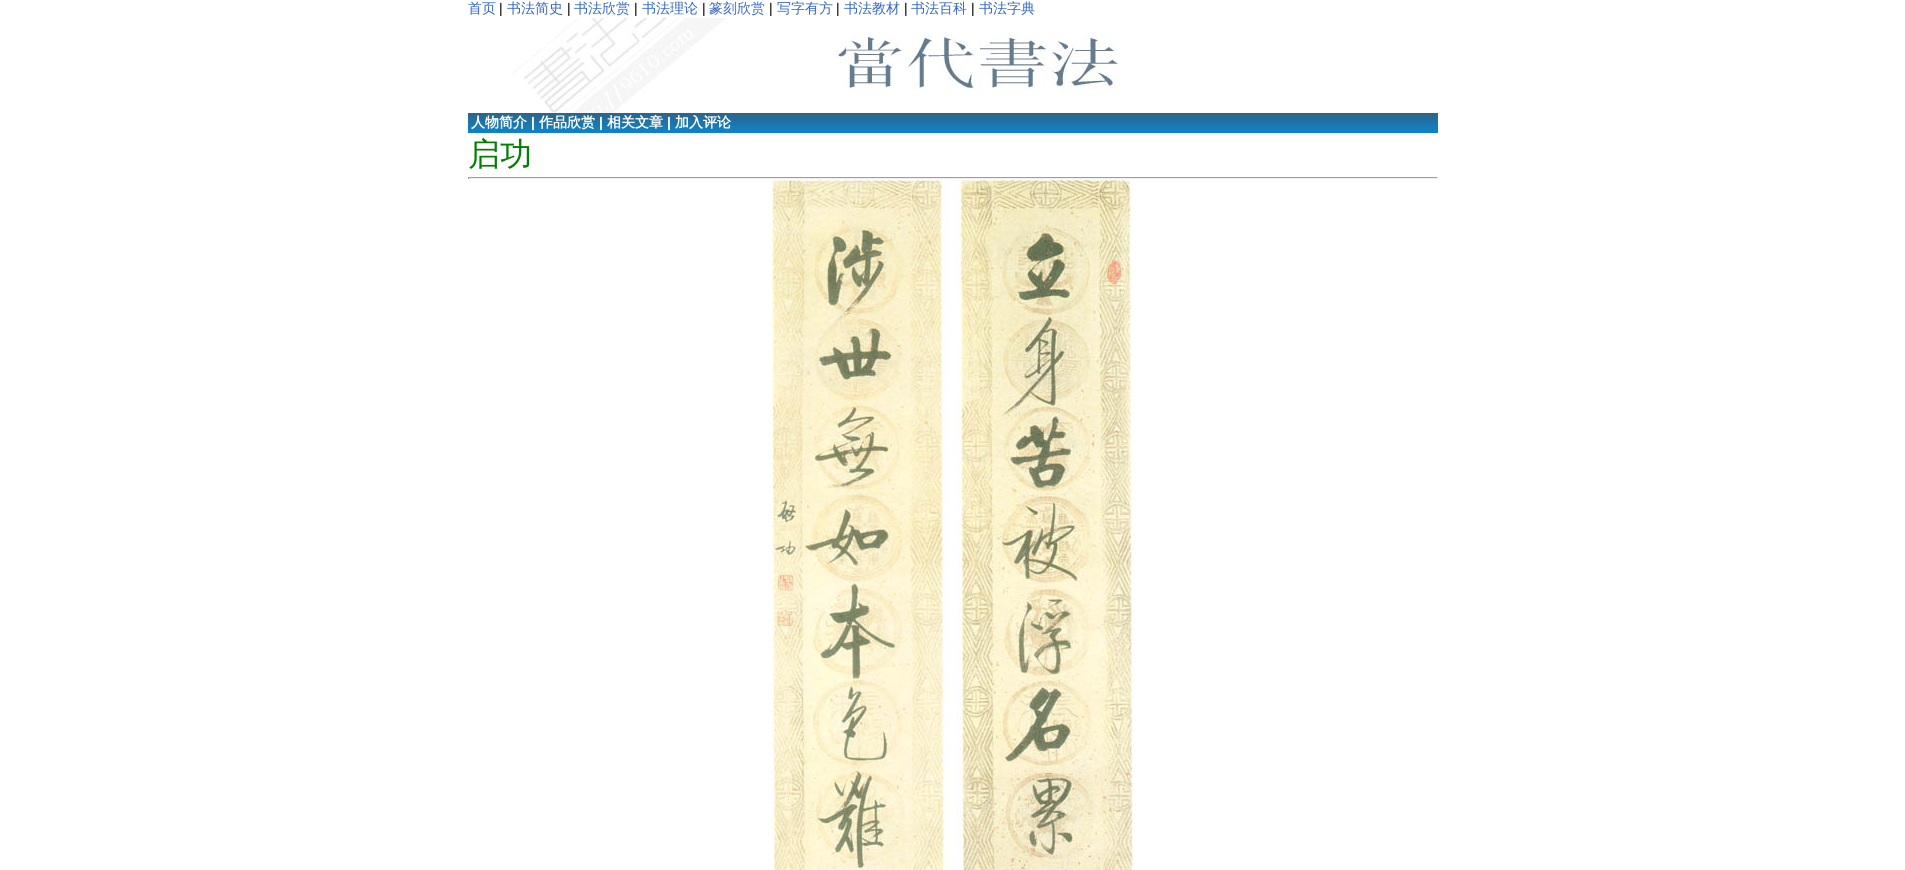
import math
import cairo

surface = cairo.ImageSurface(cairo.FORMAT_RGB24, 1905, 870)
ctx = cairo.Context(surface)
options = cairo.FontOptions()
options.set_hint_metrics(cairo.HINT_METRICS_OFF)
options.set_hint_style(cairo.HINT_STYLE_NONE)
ctx.set_font_options(options)
ctx.set_miter_limit(4)


def picture(path, x, y, w, h):
    ctx.save()
    ctx.set_source_surface(cairo.ImageSurface.create_from_png(path), x, y)
    ctx.rectangle(x, y, w, h)
    ctx.fill()
    ctx.restore()


ctx.set_source_rgb(1, 1, 1)
ctx.paint()
ctx.select_font_face("WenQuanYi Zen Hei Medium")
ctx.set_font_size(14)
ctx.set_source_rgb(0.2, 0.4, 0.8)
ctx.move_to(468, 13)
ctx.show_text("首页")
ctx.select_font_face("Liberation Sans")
ctx.set_source_rgb(0, 0, 0)
ctx.move_to(499, 13)
ctx.show_text("|")
ctx.select_font_face("WenQuanYi Zen Hei Medium")
ctx.set_source_rgb(0.2, 0.4, 0.8)
ctx.move_to(507, 13)
ctx.show_text("书法简史")
ctx.select_font_face("Liberation Sans")
ctx.set_source_rgb(0, 0, 0)
ctx.move_to(567, 13)
ctx.show_text("|")
ctx.select_font_face("WenQuanYi Zen Hei Medium")
ctx.set_source_rgb(0.2, 0.4, 0.8)
ctx.move_to(574, 13)
ctx.show_text("书法欣赏")
ctx.select_font_face("Liberation Sans")
ctx.set_source_rgb(0, 0, 0)
ctx.move_to(634, 13)
ctx.show_text("|")
ctx.select_font_face("WenQuanYi Zen Hei Medium")
ctx.set_source_rgb(0.2, 0.4, 0.8)
ctx.move_to(642, 13)
ctx.show_text("书法理论")
ctx.select_font_face("Liberation Sans")
ctx.set_source_rgb(0, 0, 0)
ctx.move_to(702, 13)
ctx.show_text("|")
ctx.select_font_face("WenQuanYi Zen Hei Medium")
ctx.set_source_rgb(0.2, 0.4, 0.8)
ctx.move_to(709, 13)
ctx.show_text("篆刻欣赏")
ctx.select_font_face("Liberation Sans")
ctx.set_source_rgb(0, 0, 0)
ctx.move_to(769, 13)
ctx.show_text("|")
ctx.select_font_face("WenQuanYi Zen Hei Medium")
ctx.set_source_rgb(0.2, 0.4, 0.8)
ctx.move_to(777, 13)
ctx.show_text("写字有方")
ctx.select_font_face("Liberation Sans")
ctx.set_source_rgb(0, 0, 0)
ctx.move_to(836, 13)
ctx.show_text("|")
ctx.select_font_face("WenQuanYi Zen Hei Medium")
ctx.set_source_rgb(0.2, 0.4, 0.8)
ctx.move_to(844, 13)
ctx.show_text("书法教材")
ctx.select_font_face("Liberation Sans")
ctx.set_source_rgb(0, 0, 0)
ctx.move_to(904, 13)
ctx.show_text("|")
ctx.select_font_face("WenQuanYi Zen Hei Medium")
ctx.set_source_rgb(0.2, 0.4, 0.8)
ctx.move_to(911, 13)
ctx.show_text("书法百科")
ctx.select_font_face("Liberation Sans")
ctx.set_source_rgb(0, 0, 0)
ctx.move_to(971, 13)
ctx.show_text("|")
ctx.select_font_face("WenQuanYi Zen Hei Medium")
ctx.set_source_rgb(0.2, 0.4, 0.8)
ctx.move_to(979, 13)
ctx.show_text("书法字典")
picture("img1.png", 511, 18, 607, 95)
picture("img2.png", 468, 113, 970, 20)
ctx.select_font_face("WenQuanYi Zen Hei", cairo.FONT_SLANT_NORMAL, cairo.FONT_WEIGHT_BOLD)
ctx.set_source_rgb(1, 1, 1)
ctx.move_to(471, 127)
ctx.show_text("人物简介")
ctx.select_font_face("Liberation Sans", cairo.FONT_SLANT_NORMAL, cairo.FONT_WEIGHT_BOLD)
ctx.move_to(531, 127)
ctx.show_text("|")
ctx.select_font_face("WenQuanYi Zen Hei", cairo.FONT_SLANT_NORMAL, cairo.FONT_WEIGHT_BOLD)
ctx.move_to(539, 127)
ctx.show_text("作品欣赏")
ctx.select_font_face("Liberation Sans", cairo.FONT_SLANT_NORMAL, cairo.FONT_WEIGHT_BOLD)
ctx.move_to(599, 127)
ctx.show_text("|")
ctx.select_font_face("WenQuanYi Zen Hei", cairo.FONT_SLANT_NORMAL, cairo.FONT_WEIGHT_BOLD)
ctx.move_to(607, 127)
ctx.show_text("相关文章")
ctx.select_font_face("Liberation Sans", cairo.FONT_SLANT_NORMAL, cairo.FONT_WEIGHT_BOLD)
ctx.move_to(667, 127)
ctx.show_text("|")
ctx.select_font_face("WenQuanYi Zen Hei", cairo.FONT_SLANT_NORMAL, cairo.FONT_WEIGHT_BOLD)
ctx.move_to(675, 127)
ctx.show_text("加入评论")
ctx.select_font_face("WenQuanYi Zen Hei Medium")
ctx.set_font_size(32)
ctx.set_source_rgb(0, 0.502, 0)
ctx.move_to(468, 165)
ctx.show_text("启功")
ctx.set_source_rgb(0.624, 0.624, 0.624)
ctx.rectangle(468, 177, 970, 1)
ctx.fill()
ctx.set_source_rgb(0.933, 0.933, 0.933)
ctx.rectangle(1437, 177, 1, 2)
ctx.fill()
ctx.rectangle(468, 178, 970, 1)
ctx.fill()
ctx.set_source_rgb(0.624, 0.624, 0.624)
ctx.rectangle(468, 177, 1, 2)
ctx.fill()
picture("img3.png", 772, 179, 362, 691)
surface.write_to_png("page.png")
